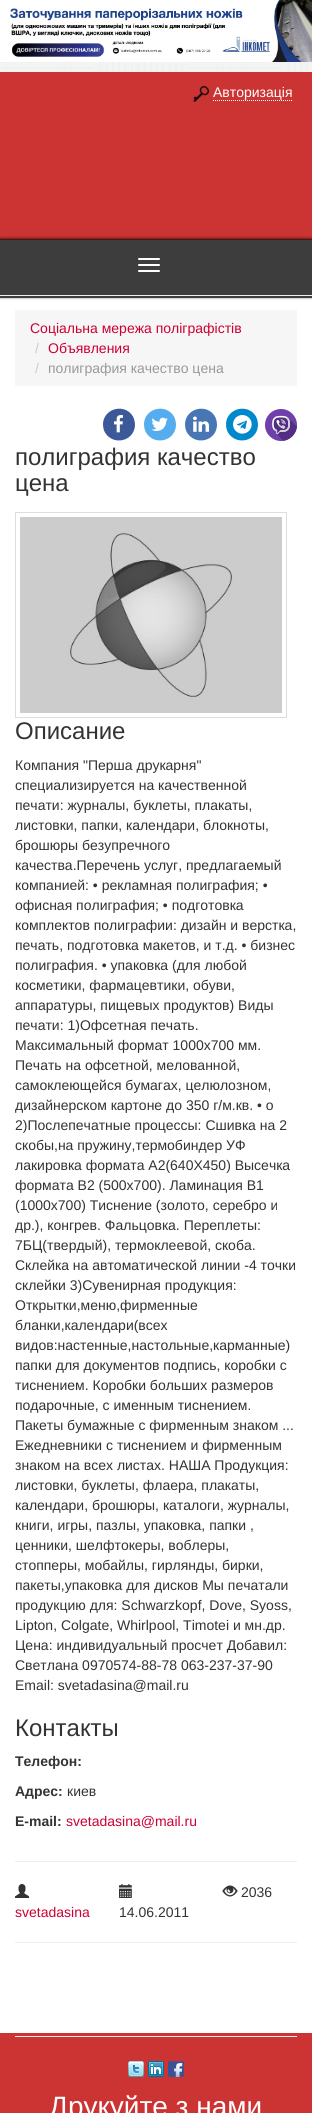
import math
import cairo

surface = cairo.ImageSurface(cairo.FORMAT_RGB24, 312, 2113)
ctx = cairo.Context(surface)
options = cairo.FontOptions()
options.set_hint_metrics(cairo.HINT_METRICS_OFF)
options.set_hint_style(cairo.HINT_STYLE_NONE)
ctx.set_font_options(options)
ctx.set_miter_limit(4)


def round_rect(x, y, w, h, r):
    ctx.new_sub_path()
    for i, (u, v) in enumerate([(x + w - r, y + h - r), (x + r, y + h - r), (x + r, y + r), (x + w - r, y + r)]):
        ctx.arc(u, v, r, i * math.pi / 2, (i + 1) * math.pi / 2)
    ctx.close_path()


def shadow(x, y, w, h, r, blur, alpha):
    ctx.push_group_with_content(cairo.CONTENT_ALPHA)
    ctx.set_operator(cairo.OPERATOR_SOURCE)
    for i in range(15, -16, -2):
        e = blur * i / 6
        if min(w, h) + 2 * e > 0:
            ctx.set_source_rgba(0, 0, 0, alpha * math.erfc((i - 1) / 8.5) / 2)
            round_rect(x - e, y - e, w + 2 * e, h + 2 * e, max(0, min(r + e + blur * .6, min(w, h) / 2 + e)))
            ctx.fill()
    ctx.mask(ctx.pop_group())


def picture(path, x, y, w, h):
    ctx.save()
    ctx.set_source_surface(cairo.ImageSurface.create_from_png(path), x, y)
    ctx.rectangle(x, y, w, h)
    ctx.fill()
    ctx.restore()


ctx.set_source_rgb(1, 1, 1)
ctx.paint()
picture("img1.png", 0, 62, 312, 10)
picture("img2.png", 0, 0, 312, 62)
ctx.set_source_rgb(0.8, 0.2, 0.2)
ctx.rectangle(0, 72, 312, 168)
ctx.fill()
picture("img3.png", 193, 86, 16, 16)
ctx.select_font_face("Liberation Sans")
ctx.set_font_size(14)
ctx.set_source_rgb(1, 1, 1)
ctx.move_to(213, 97)
ctx.show_text("Авторизація")
ctx.new_path()
ctx.move_to(213, 100.5)
ctx.line_to(292, 100.5)
ctx.set_line_width(1)
ctx.set_dash([1, 1])
ctx.stroke()
ctx.set_source_rgb(0, 0, 0)
shadow(0, 239, 312, 58, 0, 1.5, 0.95)
ctx.set_source_rgb(0.239, 0.239, 0.239)
ctx.rectangle(0, 240, 312, 58)
ctx.fill()
ctx.set_source_rgb(1, 1, 1)
round_rect(138, 258, 22, 2, 1)
ctx.fill()
round_rect(138, 264, 22, 2, 1)
ctx.fill()
round_rect(138, 270, 22, 2, 1)
ctx.fill()
ctx.set_source_rgb(0.937, 0.937, 0.937)
ctx.rectangle(0, 295, 312, 1)
ctx.fill()
ctx.set_source_rgb(0.961, 0.961, 0.961)
ctx.rectangle(15, 310, 282, 76)
ctx.fill()
ctx.set_source_rgb(0.8, 0, 0.2)
ctx.move_to(30, 333)
ctx.show_text("Соціальна мережа поліграфістів")
ctx.set_source_rgb(0.8, 0.8, 0.8)
ctx.move_to(35, 353)
ctx.show_text("/")
ctx.set_source_rgb(0.8, 0, 0.2)
ctx.move_to(48, 353)
ctx.show_text("Объявления")
ctx.set_source_rgb(0.8, 0.8, 0.8)
ctx.move_to(35, 373)
ctx.show_text("/")
ctx.set_source_rgb(0.6, 0.6, 0.6)
ctx.move_to(48, 373)
ctx.show_text("полиграфия качество цена")
ctx.set_source_rgb(0.231, 0.349, 0.596)
ctx.new_path()
ctx.move_to(133, 416.5)
ctx.curve_to(134.5, 419.5, 135, 422.5, 135, 425.5)
ctx.curve_to(134, 441.5, 113, 446, 105, 432.5)
ctx.curve_to(103.5, 430, 103, 427, 103, 423.5)
ctx.curve_to(104, 408, 125, 403, 133, 416.5)
ctx.close_path()
ctx.fill()
picture("img4.png", 114, 415, 9, 18)
ctx.set_source_rgb(0.333, 0.675, 0.933)
ctx.new_path()
ctx.move_to(174, 416.5)
ctx.curve_to(175.5, 419.5, 176, 422.5, 176, 425.5)
ctx.curve_to(175, 441.5, 154, 446, 146, 432.5)
ctx.curve_to(144.5, 430, 144, 427, 144, 423.5)
ctx.curve_to(145, 408, 166, 403, 174, 416.5)
ctx.close_path()
ctx.fill()
picture("img5.png", 151, 417, 17, 14)
ctx.set_source_rgb(0.282, 0.459, 0.706)
ctx.new_path()
ctx.move_to(215, 416.5)
ctx.curve_to(216.5, 419.5, 217, 422.5, 217, 425.5)
ctx.curve_to(216, 441.5, 195, 446, 187, 432.5)
ctx.curve_to(185.5, 430, 185, 427, 185, 423.5)
ctx.curve_to(186, 408, 207, 403, 215, 416.5)
ctx.close_path()
ctx.fill()
picture("img6.png", 193, 416, 16, 16)
ctx.set_source_rgb(0, 0.533, 0.8)
ctx.new_path()
ctx.move_to(256, 416.5)
ctx.curve_to(257.5, 419.5, 258, 422.5, 258, 425.5)
ctx.curve_to(257, 441.5, 236, 446, 228, 432.5)
ctx.curve_to(226.5, 430, 226, 427, 226, 423.5)
ctx.curve_to(227, 408, 248, 403, 256, 416.5)
ctx.close_path()
ctx.fill()
picture("img7.png", 233, 415, 19, 19)
picture("img8.png", 265, 409, 32, 32)
ctx.set_font_size(24)
ctx.set_source_rgb(0.2, 0.2, 0.2)
ctx.move_to(15, 465)
ctx.show_text("полиграфия качество")
ctx.move_to(15, 491)
ctx.show_text("цена")
ctx.rectangle(15.5, 512.5, 271, 205)
ctx.set_source_rgb(0.867, 0.867, 0.867)
ctx.set_dash([])
ctx.stroke()
picture("img9.png", 20, 517, 262, 196)
ctx.set_source_rgb(0.2, 0.2, 0.2)
ctx.move_to(15, 739)
ctx.show_text("Описание")
ctx.set_font_size(14)
ctx.move_to(15, 770)
ctx.show_text("Компания \"Перша друкарня\"")
ctx.move_to(15, 790)
ctx.show_text("специализируется на качественной")
ctx.move_to(15, 810)
ctx.show_text("печати: журналы, буклеты, плакаты,")
ctx.move_to(15, 830)
ctx.show_text("листовки, папки, календари, блокноты,")
ctx.move_to(15, 850)
ctx.show_text("брошюры безупречного")
ctx.move_to(15, 870)
ctx.show_text("качества.Перечень услуг, предлагаемый")
ctx.move_to(15, 890)
ctx.show_text("компанией: • рекламная полиграфия; •")
ctx.move_to(15, 910)
ctx.show_text("офисная полиграфия; • подготовка")
ctx.move_to(15, 930)
ctx.show_text("комплектов полиграфии: дизайн и верстка,")
ctx.move_to(15, 950)
ctx.show_text("печать, подготовка макетов, и т.д. • бизнес")
ctx.move_to(15, 970)
ctx.show_text("полиграфия. • упаковка (для любой")
ctx.move_to(15, 990)
ctx.show_text("косметики, фармацевтики, обуви,")
ctx.move_to(15, 1010)
ctx.show_text("аппаратуры, пищевых продуктов) Виды")
ctx.move_to(15, 1030)
ctx.show_text("печати: 1)Офсетная печать.")
ctx.move_to(15, 1050)
ctx.show_text("Максимальный формат 1000х700 мм.")
ctx.move_to(15, 1070)
ctx.show_text("Печать на офсетной, мелованной,")
ctx.move_to(15, 1090)
ctx.show_text("самоклеющейся бумагах, целюлозном,")
ctx.move_to(15, 1110)
ctx.show_text("дизайнерском картоне до 350 г/м.кв. • o")
ctx.move_to(15, 1130)
ctx.show_text("2)Послепечатные процессы: Сшивка на 2")
ctx.move_to(15, 1150)
ctx.show_text("скобы,на пружину,термобиндер УФ")
ctx.move_to(15, 1170)
ctx.show_text("лакировка формата А2(640Х450) Высечка")
ctx.move_to(15, 1190)
ctx.show_text("формата В2 (500х700). Ламинация В1")
ctx.move_to(15, 1210)
ctx.show_text("(1000х700) Тиснение (золото, серебро и")
ctx.move_to(15, 1230)
ctx.show_text("др.), конгрев. Фальцовка. Переплеты:")
ctx.move_to(15, 1250)
ctx.show_text("7БЦ(твердый), термоклеевой, скоба.")
ctx.move_to(15, 1270)
ctx.show_text("Склейка на автоматической линии -4 точки")
ctx.move_to(15, 1290)
ctx.show_text("склейки 3)Сувенирная продукция:")
ctx.move_to(15, 1310)
ctx.show_text("Открытки,меню,фирменные")
ctx.move_to(15, 1330)
ctx.show_text("бланки,календари(всех")
ctx.move_to(15, 1350)
ctx.show_text("видов:настенные,настольные,карманные)")
ctx.move_to(15, 1370)
ctx.show_text("папки для документов подпись, коробки с")
ctx.move_to(15, 1390)
ctx.show_text("тиснением. Коробки больших размеров")
ctx.move_to(15, 1410)
ctx.show_text("подарочные, с именным тиснением.")
ctx.move_to(15, 1430)
ctx.show_text("Пакеты бумажные с фирменным знаком ...")
ctx.move_to(15, 1450)
ctx.show_text("Ежедневники с тиснением и фирменным")
ctx.move_to(15, 1470)
ctx.show_text("знаком на всех листах. НАША Продукция:")
ctx.move_to(15, 1490)
ctx.show_text("листовки, буклеты, флаера, плакаты,")
ctx.move_to(15, 1510)
ctx.show_text("календари, брошюры, каталоги, журналы,")
ctx.move_to(15, 1530)
ctx.show_text("книги, игры, пазлы, упаковка, папки ,")
ctx.move_to(15, 1550)
ctx.show_text("ценники, шелфтокеры, воблеры,")
ctx.move_to(15, 1570)
ctx.show_text("стопперы, мобайлы, гирлянды, бирки,")
ctx.move_to(15, 1590)
ctx.show_text("пакеты,упаковка для дисков Мы печатали")
ctx.move_to(15, 1610)
ctx.show_text("продукцию для: Schwarzkopf, Dove, Syoss,")
ctx.move_to(15, 1630)
ctx.show_text("Lipton, Colgate, Whirlpool, Timotei и мн.др.")
ctx.move_to(15, 1650)
ctx.show_text("Цена: индивидуальный просчет Добавил:")
ctx.move_to(15, 1670)
ctx.show_text("Светлана 0970574-88-78 063-237-37-90")
ctx.move_to(15, 1690)
ctx.show_text("Email: svetadasina@mail.ru")
ctx.set_font_size(24)
ctx.move_to(15, 1736)
ctx.show_text("Контакты")
ctx.select_font_face("Liberation Sans", cairo.FONT_SLANT_NORMAL, cairo.FONT_WEIGHT_BOLD)
ctx.set_font_size(14)
ctx.move_to(15, 1766)
ctx.show_text("Телефон:")
ctx.move_to(15, 1796)
ctx.show_text("Адрес:")
ctx.select_font_face("Liberation Sans")
ctx.move_to(67, 1796)
ctx.show_text("киев")
ctx.select_font_face("Liberation Sans", cairo.FONT_SLANT_NORMAL, cairo.FONT_WEIGHT_BOLD)
ctx.move_to(15, 1826)
ctx.show_text("E-mail:")
ctx.select_font_face("Liberation Sans")
ctx.set_source_rgb(0.8, 0, 0.2)
ctx.move_to(66, 1826)
ctx.show_text("svetadasina@mail.ru")
ctx.set_source_rgb(0.933, 0.933, 0.933)
ctx.rectangle(15, 1861, 282, 1)
ctx.fill()
picture("img10.png", 222, 1885, 16, 12)
ctx.set_source_rgb(0.2, 0.2, 0.2)
ctx.move_to(241, 1897)
ctx.show_text("2036")
picture("img11.png", 15, 1884, 14, 14)
ctx.set_source_rgb(0.8, 0, 0.2)
ctx.move_to(15, 1917)
ctx.show_text("svetadasina")
picture("img12.png", 119, 1884, 13, 14)
ctx.set_source_rgb(0.2, 0.2, 0.2)
ctx.move_to(119, 1917)
ctx.show_text("14.06.2011")
ctx.set_source_rgb(0.933, 0.933, 0.933)
ctx.rectangle(15, 1942, 282, 1)
ctx.fill()
ctx.set_source_rgb(0.8, 0.2, 0.2)
ctx.rectangle(0, 2033, 312, 80)
ctx.fill()
ctx.set_source_rgb(0.933, 0.933, 0.933)
ctx.rectangle(15, 2036, 282, 1)
ctx.fill()
picture("img13.png", 128, 2061, 16, 16)
picture("img14.png", 148, 2061, 16, 16)
picture("img15.png", 168, 2061, 16, 16)
ctx.set_font_size(28)
ctx.set_source_rgb(1, 1, 1)
ctx.move_to(49, 2116)
ctx.show_text("Друкуйте з нами")
surface.write_to_png("page.png")
